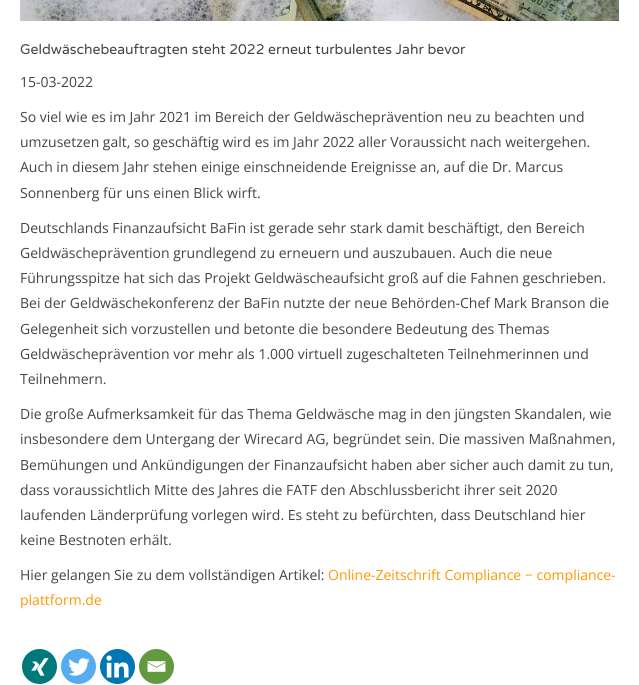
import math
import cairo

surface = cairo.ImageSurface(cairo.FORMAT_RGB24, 639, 685)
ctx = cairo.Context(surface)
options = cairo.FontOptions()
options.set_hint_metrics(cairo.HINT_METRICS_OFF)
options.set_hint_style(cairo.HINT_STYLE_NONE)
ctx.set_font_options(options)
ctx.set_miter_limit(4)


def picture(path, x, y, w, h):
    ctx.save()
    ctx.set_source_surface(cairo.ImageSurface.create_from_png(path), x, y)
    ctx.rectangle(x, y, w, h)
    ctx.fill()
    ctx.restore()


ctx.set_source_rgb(1, 1, 1)
ctx.paint()
picture("img1.png", 20, 0, 599, 21)
ctx.select_font_face("Varela Round")
ctx.set_font_size(14)
ctx.set_source_rgb(0.247, 0.271, 0.286)
ctx.move_to(20, 54)
ctx.show_text("Geldwäschebeauftragten steht 2022 erneut turbulentes Jahr bevor")
ctx.select_font_face("Open Sans")
ctx.move_to(20, 87)
ctx.show_text("15-03-2022")
ctx.move_to(20, 122)
ctx.show_text("So viel wie es im Jahr 2021 im Bereich der Geldwäscheprävention neu zu beachten und")
ctx.move_to(20, 147)
ctx.show_text("umzusetzen galt, so geschäftig wird es im Jahr 2022 aller Voraussicht nach weitergehen.")
ctx.move_to(20, 172)
ctx.show_text("Auch in diesem Jahr stehen einige einschneidende Ereignisse an, auf die Dr. Marcus")
ctx.move_to(20, 198)
ctx.show_text("Sonnenberg für uns einen Blick wirft.")
ctx.move_to(20, 233)
ctx.show_text("Deutschlands Finanzaufsicht BaFin ist gerade sehr stark damit beschäftigt, den Bereich")
ctx.move_to(20, 258)
ctx.show_text("Geldwäscheprävention grundlegend zu erneuern und auszubauen. Auch die neue")
ctx.move_to(20, 283)
ctx.show_text("Führungsspitze hat sich das Projekt Geldwäscheaufsicht groß auf die Fahnen geschrieben.")
ctx.move_to(20, 308)
ctx.show_text("Bei der Geldwäschekonferenz der BaFin nutzte der neue Behörden-Chef Mark Branson die")
ctx.move_to(20, 334)
ctx.show_text("Gelegenheit sich vorzustellen und betonte die besondere Bedeutung des Themas")
ctx.move_to(20, 359)
ctx.show_text("Geldwäscheprävention vor mehr als 1.000 virtuell zugeschalteten Teilnehmerinnen und")
ctx.move_to(20, 384)
ctx.show_text("Teilnehmern.")
ctx.move_to(20, 419)
ctx.show_text("Die große Aufmerksamkeit für das Thema Geldwäsche mag in den jüngsten Skandalen, wie")
ctx.move_to(20, 444)
ctx.show_text("insbesondere dem Untergang der Wirecard AG, begründet sein. Die massiven Maßnahmen,")
ctx.move_to(20, 470)
ctx.show_text("Bemühungen und Ankündigungen der Finanzaufsicht haben aber sicher auch damit zu tun,")
ctx.move_to(20, 495)
ctx.show_text("dass voraussichtlich Mitte des Jahres die FATF den Abschlussbericht ihrer seit 2020")
ctx.move_to(20, 520)
ctx.show_text("laufenden Länderprüfung vorlegen wird. Es steht zu befürchten, dass Deutschland hier")
ctx.move_to(20, 545)
ctx.show_text("keine Bestnoten erhält.")
ctx.move_to(20, 580)
ctx.show_text("Hier gelangen Sie zu dem vollständigen Artikel:")
ctx.set_source_rgb(1, 0.588, 0)
ctx.move_to(328, 580)
ctx.show_text("Online-Zeitschrift Compliance − compliance-")
ctx.move_to(20, 605)
ctx.show_text("plattform.de")
ctx.set_source_rgb(0, 0.475, 0.49)
ctx.new_path()
ctx.arc(39.5, 666.5, 17.5, 0, 2 * math.pi)
ctx.fill()
picture("img2.png", 31, 658, 18, 18)
ctx.set_source_rgb(0.333, 0.675, 0.933)
ctx.arc(78.5, 666.5, 17.5, 0, 2 * math.pi)
ctx.fill()
picture("img3.png", 68, 658, 22, 18)
ctx.set_source_rgb(0, 0.467, 0.71)
ctx.arc(117.5, 666.5, 17.5, 0, 2 * math.pi)
ctx.fill()
picture("img4.png", 106, 655, 23, 23)
ctx.set_source_rgb(0.392, 0.604, 0.247)
ctx.arc(156.5, 666.5, 17.5, 0, 2 * math.pi)
ctx.fill()
picture("img5.png", 147, 661, 19, 11)
surface.write_to_png("page.png")
